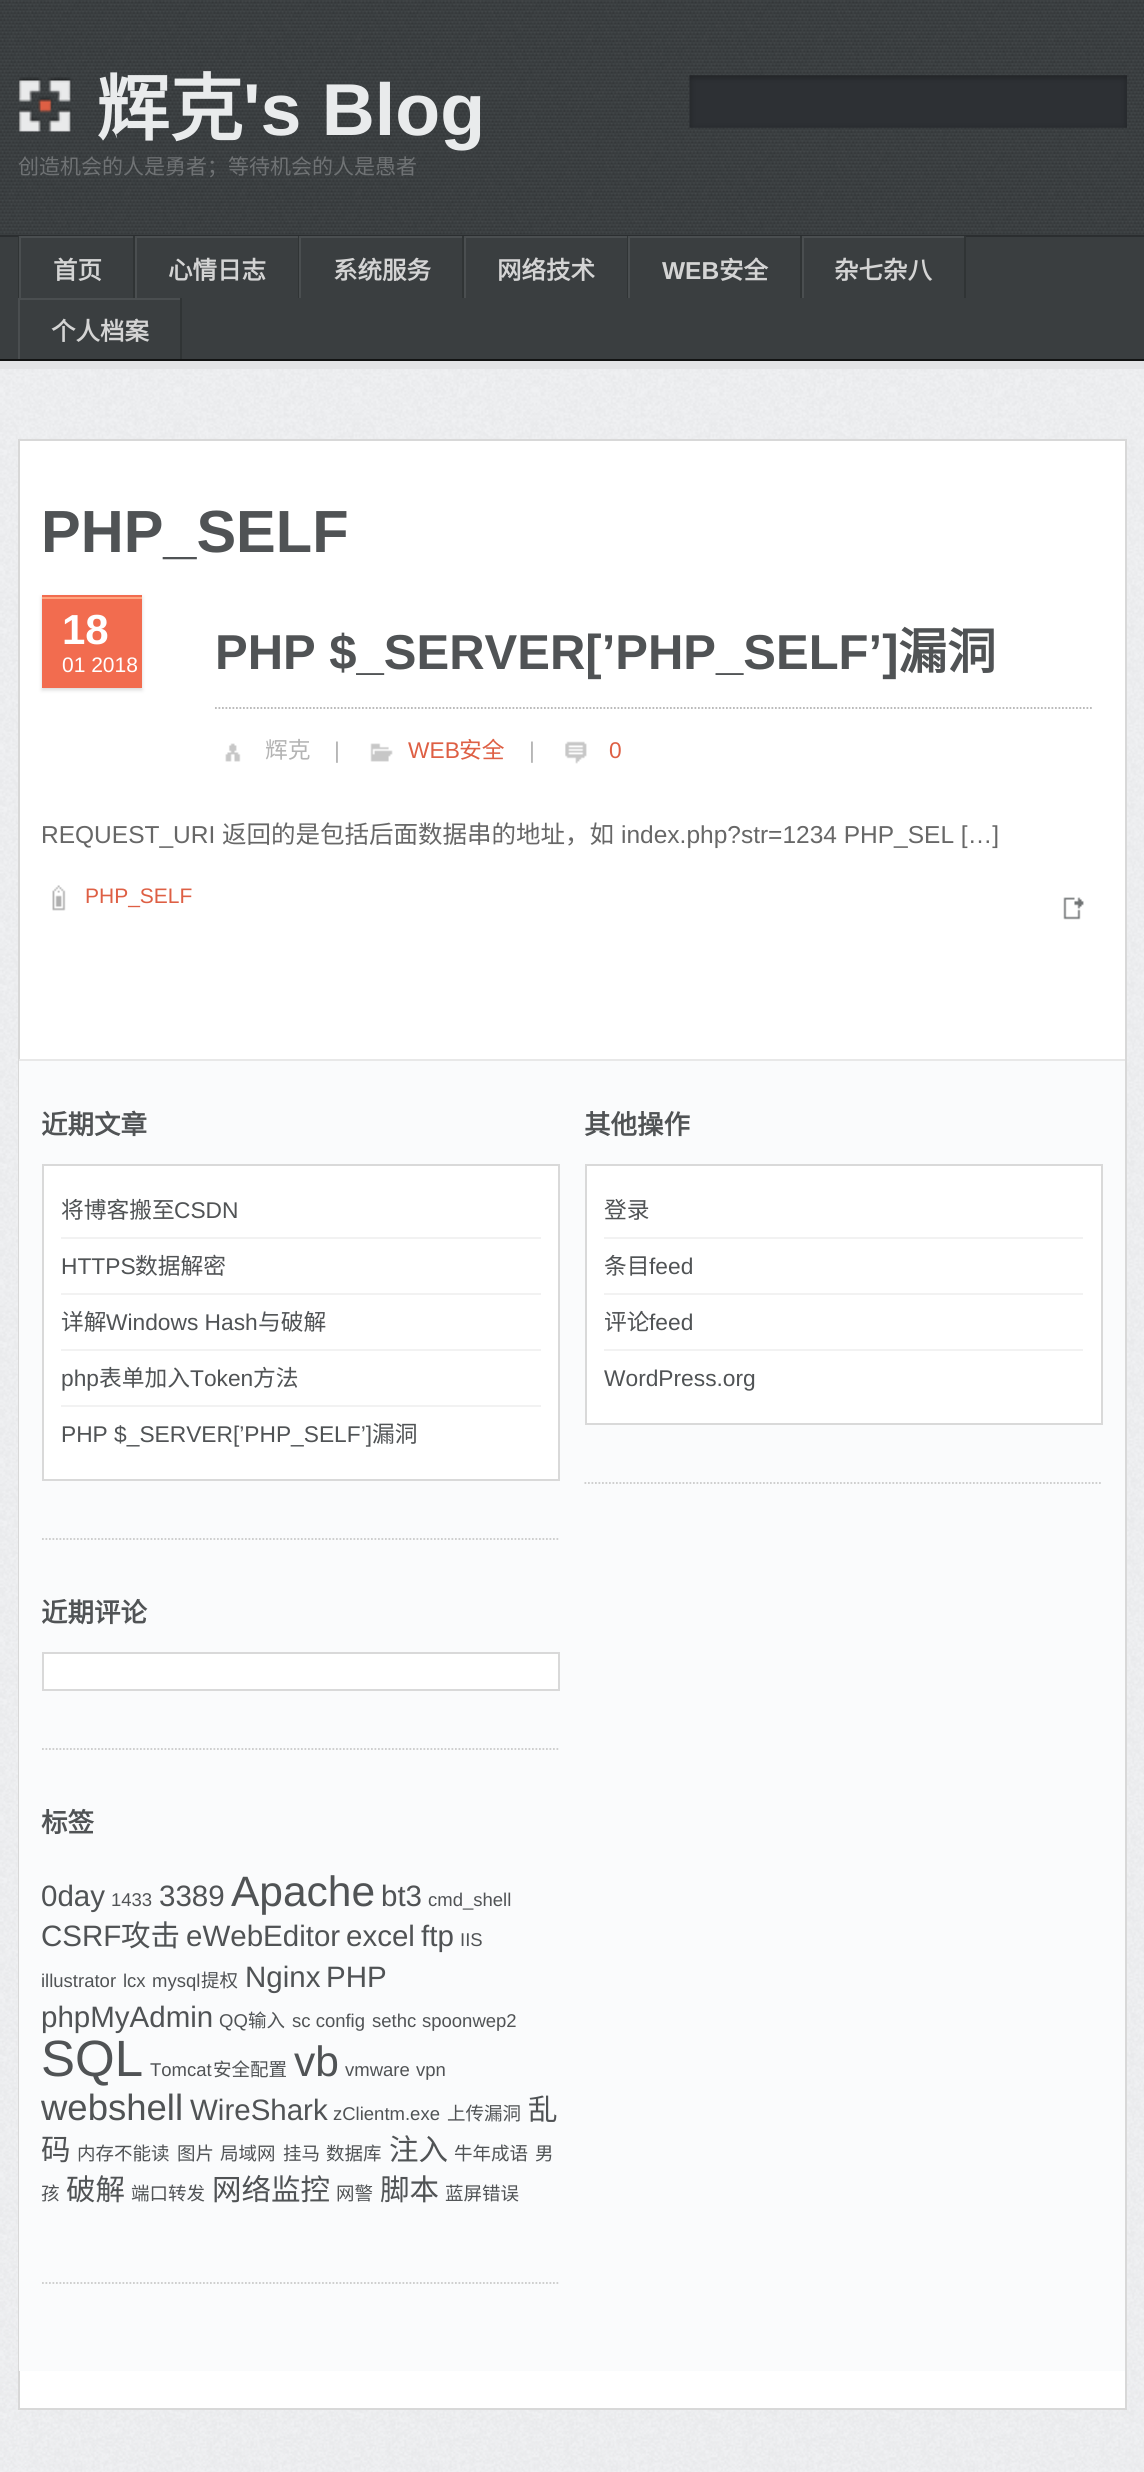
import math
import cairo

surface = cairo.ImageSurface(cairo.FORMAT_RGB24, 1144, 2472)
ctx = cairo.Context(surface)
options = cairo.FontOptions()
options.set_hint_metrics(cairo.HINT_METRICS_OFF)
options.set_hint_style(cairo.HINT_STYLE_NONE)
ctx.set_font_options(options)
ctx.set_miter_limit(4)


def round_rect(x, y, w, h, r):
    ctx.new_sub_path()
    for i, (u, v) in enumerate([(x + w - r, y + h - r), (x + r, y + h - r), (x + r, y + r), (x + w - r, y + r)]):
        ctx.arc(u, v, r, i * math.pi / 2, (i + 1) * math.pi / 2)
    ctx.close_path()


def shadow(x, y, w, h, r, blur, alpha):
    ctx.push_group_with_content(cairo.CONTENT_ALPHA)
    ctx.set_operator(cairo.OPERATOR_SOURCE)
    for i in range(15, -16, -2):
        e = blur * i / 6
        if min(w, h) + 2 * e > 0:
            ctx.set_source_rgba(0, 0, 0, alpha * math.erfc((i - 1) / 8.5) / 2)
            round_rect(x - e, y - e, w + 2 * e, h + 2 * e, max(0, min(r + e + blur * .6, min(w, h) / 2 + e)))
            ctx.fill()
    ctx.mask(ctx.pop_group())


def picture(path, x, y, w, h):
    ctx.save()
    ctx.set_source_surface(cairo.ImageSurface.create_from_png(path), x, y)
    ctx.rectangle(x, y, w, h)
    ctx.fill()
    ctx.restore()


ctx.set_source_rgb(1, 1, 1)
ctx.paint()
picture("img1.png", 0, 0, 1144, 234)
picture("img2.png", 18, 77, 54, 55)
ctx.select_font_face("Noto Sans CJK SC", cairo.FONT_SLANT_NORMAL, cairo.FONT_WEIGHT_BOLD)
ctx.set_font_size(73.5)
ctx.set_source_rgb(0.914, 0.918, 0.922)
ctx.move_to(96, 135)
ctx.show_text("辉克")
ctx.select_font_face("Liberation Sans", cairo.FONT_SLANT_NORMAL, cairo.FONT_WEIGHT_BOLD)
ctx.move_to(243, 135)
ctx.show_text("'s Blog")
ctx.select_font_face("Noto Sans CJK SC")
ctx.set_font_size(21)
ctx.set_source_rgb(0.435, 0.447, 0.455)
ctx.move_to(18, 174)
ctx.show_text("创造机会的人是勇者；等待机会的人是愚者")
picture("img3.png", 689, 75, 438, 53)
ctx.set_source_rgb(0.227, 0.243, 0.251)
ctx.rectangle(0, 234, 1144, 125)
ctx.fill()
ctx.set_source_rgb(0.169, 0.18, 0.188)
ctx.rectangle(0, 235, 1144, 2)
ctx.fill()
ctx.set_source_rgb(0.071, 0.075, 0.078)
ctx.rectangle(0, 359, 1144, 2)
ctx.fill()
ctx.set_source_rgb(0.188, 0.204, 0.208)
ctx.rectangle(18, 236, 1, 62)
ctx.fill()
ctx.set_source_rgb(0.29, 0.306, 0.314)
ctx.rectangle(19, 236, 947, 2)
ctx.fill()
ctx.set_source_rgb(0.188, 0.204, 0.208)
ctx.rectangle(133, 236, 2, 62)
ctx.fill()
ctx.set_source_rgb(0.29, 0.306, 0.314)
ctx.rectangle(19, 236, 2, 62)
ctx.fill()
ctx.select_font_face("Noto Sans CJK SC", cairo.FONT_SLANT_NORMAL, cairo.FONT_WEIGHT_BOLD)
ctx.set_font_size(24.5)
ctx.set_source_rgb(0.831, 0.831, 0.831)
ctx.move_to(53, 279)
ctx.show_text("首页")
ctx.set_source_rgb(0.188, 0.204, 0.208)
ctx.rectangle(298, 236, 1, 62)
ctx.fill()
ctx.set_source_rgb(0.29, 0.306, 0.314)
ctx.rectangle(135, 236, 2, 62)
ctx.fill()
ctx.set_source_rgb(0.831, 0.831, 0.831)
ctx.move_to(168, 279)
ctx.show_text("心情日志")
ctx.set_source_rgb(0.188, 0.204, 0.208)
ctx.rectangle(462, 236, 2, 62)
ctx.fill()
ctx.set_source_rgb(0.29, 0.306, 0.314)
ctx.rectangle(299, 236, 2, 62)
ctx.fill()
ctx.set_source_rgb(0.831, 0.831, 0.831)
ctx.move_to(333, 279)
ctx.show_text("系统服务")
ctx.set_source_rgb(0.188, 0.204, 0.208)
ctx.rectangle(627, 236, 1, 62)
ctx.fill()
ctx.set_source_rgb(0.29, 0.306, 0.314)
ctx.rectangle(464, 236, 2, 62)
ctx.fill()
ctx.set_source_rgb(0.831, 0.831, 0.831)
ctx.move_to(497, 279)
ctx.show_text("网络技术")
ctx.set_source_rgb(0.188, 0.204, 0.208)
ctx.rectangle(800, 236, 2, 62)
ctx.fill()
ctx.set_source_rgb(0.29, 0.306, 0.314)
ctx.rectangle(628, 236, 2, 62)
ctx.fill()
ctx.select_font_face("Liberation Sans", cairo.FONT_SLANT_NORMAL, cairo.FONT_WEIGHT_BOLD)
ctx.set_source_rgb(0.831, 0.831, 0.831)
ctx.move_to(662, 279)
ctx.show_text("WEB")
ctx.select_font_face("Noto Sans CJK SC", cairo.FONT_SLANT_NORMAL, cairo.FONT_WEIGHT_BOLD)
ctx.move_to(719, 279)
ctx.show_text("安全")
ctx.set_source_rgb(0.188, 0.204, 0.208)
ctx.rectangle(964, 236, 2, 62)
ctx.fill()
ctx.set_source_rgb(0.29, 0.306, 0.314)
ctx.rectangle(802, 236, 2, 62)
ctx.fill()
ctx.set_source_rgb(0.831, 0.831, 0.831)
ctx.move_to(834, 279)
ctx.show_text("杂七杂八")
ctx.set_source_rgb(0.29, 0.306, 0.314)
ctx.rectangle(18, 298, 164, 2)
ctx.fill()
ctx.set_source_rgb(0.188, 0.204, 0.208)
ctx.rectangle(180, 298, 2, 61)
ctx.fill()
ctx.set_source_rgb(0.29, 0.306, 0.314)
ctx.rectangle(18, 298, 2, 61)
ctx.fill()
ctx.set_source_rgb(0.831, 0.831, 0.831)
ctx.move_to(51, 340)
ctx.show_text("个人档案")
picture("img4.png", 0, 369, 1144, 2103)
ctx.set_source_rgb(0.89, 0.894, 0.902)
ctx.rectangle(0, 361, 1144, 8)
ctx.fill()
ctx.set_source_rgb(1, 1, 1)
ctx.rectangle(19, 440, 1107, 1969)
ctx.fill_preserve()
ctx.set_source_rgb(0.847, 0.847, 0.847)
ctx.stroke()
ctx.select_font_face("Liberation Sans", cairo.FONT_SLANT_NORMAL, cairo.FONT_WEIGHT_BOLD)
ctx.set_font_size(59.5)
ctx.set_source_rgb(0.314, 0.325, 0.333)
ctx.move_to(41, 552)
ctx.show_text("PHP_SELF")
ctx.set_source_rgb(0.851, 0.851, 0.851)
shadow(42, 597, 100, 93, 0, 2, 1)
ctx.set_source_rgb(0.949, 0.424, 0.31)
ctx.rectangle(42, 595, 100, 93)
ctx.fill()
ctx.set_source_rgb(1, 0.647, 0.498)
ctx.rectangle(42, 597, 100, 2)
ctx.fill()
ctx.set_font_size(42)
ctx.set_source_rgb(1, 1, 1)
ctx.move_to(62, 644)
ctx.show_text("18")
ctx.select_font_face("Liberation Sans")
ctx.set_font_size(21)
ctx.move_to(62, 672)
ctx.show_text("01 2018")
ctx.select_font_face("Liberation Sans", cairo.FONT_SLANT_NORMAL, cairo.FONT_WEIGHT_BOLD)
ctx.set_font_size(49)
ctx.set_source_rgb(0.314, 0.325, 0.333)
ctx.move_to(215, 669)
ctx.show_text("PHP $_SERVER[’PHP_SELF’]")
ctx.select_font_face("Noto Sans CJK SC", cairo.FONT_SLANT_NORMAL, cairo.FONT_WEIGHT_BOLD)
ctx.move_to(898, 669)
ctx.show_text("漏洞")
ctx.new_path()
ctx.move_to(215, 708)
ctx.line_to(1092, 708)
ctx.set_source_rgb(0.706, 0.706, 0.706)
ctx.set_line_width(1.8)
ctx.set_dash([1.75, 1.75])
ctx.stroke()
picture("img5.png", 225, 743, 16, 19)
ctx.select_font_face("Noto Sans CJK SC")
ctx.set_font_size(22.75)
ctx.move_to(265, 758)
ctx.show_text("辉克")
ctx.select_font_face("Liberation Sans")
ctx.move_to(334, 758)
ctx.show_text("|")
picture("img6.png", 370, 743, 23, 19)
ctx.set_source_rgb(0.871, 0.373, 0.267)
ctx.move_to(408, 758)
ctx.show_text("WEB")
ctx.select_font_face("Noto Sans CJK SC")
ctx.move_to(459, 758)
ctx.show_text("安全")
ctx.select_font_face("Liberation Sans")
ctx.set_source_rgb(0.706, 0.706, 0.706)
ctx.move_to(529, 758)
ctx.show_text("|")
picture("img7.png", 565, 741, 22, 23)
ctx.set_source_rgb(0.871, 0.373, 0.267)
ctx.move_to(609, 758)
ctx.show_text("0")
ctx.set_font_size(24.5)
ctx.set_source_rgb(0.404, 0.404, 0.404)
ctx.move_to(41, 843)
ctx.show_text("REQUEST_URI")
ctx.select_font_face("Noto Sans CJK SC")
ctx.move_to(222, 843)
ctx.show_text("返回的是包括后面数据串的地址，如")
ctx.select_font_face("Liberation Sans")
ctx.move_to(621, 843)
ctx.show_text("index.php?str=1234 PHP_SEL […]")
picture("img8.png", 52, 885, 14, 26)
ctx.set_font_size(21)
ctx.set_source_rgb(0.871, 0.373, 0.267)
ctx.move_to(85, 903)
ctx.show_text("PHP_SELF")
picture("img9.png", 1063, 897, 21, 23)
ctx.set_source_rgb(0.98, 0.984, 0.988)
ctx.rectangle(19, 1061, 1106, 1310)
ctx.fill()
ctx.set_source_rgb(0.91, 0.91, 0.91)
ctx.rectangle(19, 1059, 1106, 2)
ctx.fill()
ctx.new_path()
ctx.move_to(42, 1539)
ctx.line_to(560, 1539)
ctx.set_source_rgb(0.792, 0.792, 0.792)
ctx.stroke()
ctx.select_font_face("Noto Sans CJK SC", cairo.FONT_SLANT_NORMAL, cairo.FONT_WEIGHT_BOLD)
ctx.set_font_size(26.5)
ctx.set_source_rgb(0.314, 0.325, 0.333)
ctx.move_to(41, 1134)
ctx.show_text("近期文章")
ctx.set_source_rgb(1, 1, 1)
ctx.rectangle(43, 1165, 516, 315)
ctx.fill_preserve()
ctx.set_source_rgb(0.851, 0.851, 0.851)
ctx.set_line_width(2)
ctx.set_dash([])
ctx.stroke()
ctx.select_font_face("Noto Sans CJK SC")
ctx.set_font_size(22.75)
ctx.set_source_rgb(0.314, 0.325, 0.333)
ctx.move_to(61, 1218)
ctx.show_text("将博客搬至")
ctx.select_font_face("Liberation Sans")
ctx.move_to(174, 1218)
ctx.show_text("CSDN")
ctx.set_source_rgb(0.949, 0.949, 0.949)
ctx.rectangle(61, 1237, 480, 2)
ctx.fill()
ctx.set_source_rgb(0.314, 0.325, 0.333)
ctx.move_to(61, 1274)
ctx.show_text("HTTPS")
ctx.select_font_face("Noto Sans CJK SC")
ctx.move_to(135, 1274)
ctx.show_text("数据解密")
ctx.set_source_rgb(0.949, 0.949, 0.949)
ctx.rectangle(61, 1293, 480, 2)
ctx.fill()
ctx.set_source_rgb(0.314, 0.325, 0.333)
ctx.move_to(61, 1330)
ctx.show_text("详解")
ctx.select_font_face("Liberation Sans")
ctx.move_to(106, 1330)
ctx.show_text("Windows Hash")
ctx.select_font_face("Noto Sans CJK SC")
ctx.move_to(258, 1330)
ctx.show_text("与破解")
ctx.set_source_rgb(0.949, 0.949, 0.949)
ctx.rectangle(61, 1349, 480, 2)
ctx.fill()
ctx.select_font_face("Liberation Sans")
ctx.set_source_rgb(0.314, 0.325, 0.333)
ctx.move_to(61, 1386)
ctx.show_text("php")
ctx.select_font_face("Noto Sans CJK SC")
ctx.move_to(99, 1386)
ctx.show_text("表单加入")
ctx.select_font_face("Liberation Sans")
ctx.move_to(190, 1386)
ctx.show_text("Token")
ctx.select_font_face("Noto Sans CJK SC")
ctx.move_to(253, 1386)
ctx.show_text("方法")
ctx.set_source_rgb(0.949, 0.949, 0.949)
ctx.rectangle(61, 1405, 480, 2)
ctx.fill()
ctx.select_font_face("Liberation Sans")
ctx.set_source_rgb(0.314, 0.325, 0.333)
ctx.move_to(61, 1442)
ctx.show_text("PHP $_SERVER[’PHP_SELF’]")
ctx.select_font_face("Noto Sans CJK SC")
ctx.move_to(372, 1442)
ctx.show_text("漏洞")
ctx.new_path()
ctx.move_to(42, 1749)
ctx.line_to(560, 1749)
ctx.set_source_rgb(0.792, 0.792, 0.792)
ctx.set_line_width(1.8)
ctx.set_dash([1.75, 1.75])
ctx.stroke()
ctx.select_font_face("Noto Sans CJK SC", cairo.FONT_SLANT_NORMAL, cairo.FONT_WEIGHT_BOLD)
ctx.set_font_size(26.5)
ctx.set_source_rgb(0.314, 0.325, 0.333)
ctx.move_to(41, 1622)
ctx.show_text("近期评论")
ctx.set_source_rgb(1, 1, 1)
ctx.rectangle(43, 1653, 516, 37)
ctx.fill_preserve()
ctx.set_source_rgb(0.851, 0.851, 0.851)
ctx.set_line_width(2)
ctx.set_dash([])
ctx.stroke()
ctx.new_path()
ctx.move_to(42, 2283)
ctx.line_to(560, 2283)
ctx.set_source_rgb(0.792, 0.792, 0.792)
ctx.set_line_width(1.8)
ctx.set_dash([1.75, 1.75])
ctx.stroke()
ctx.set_source_rgb(0.314, 0.325, 0.333)
ctx.move_to(41, 1832)
ctx.show_text("标签")
ctx.select_font_face("Liberation Sans")
ctx.set_font_size(29.5)
ctx.move_to(41, 1906)
ctx.show_text("0day")
ctx.set_font_size(18.5)
ctx.move_to(111, 1906)
ctx.show_text("1433")
ctx.set_font_size(29.5)
ctx.move_to(159, 1906)
ctx.show_text("3389")
ctx.set_font_size(42.5)
ctx.move_to(231, 1906)
ctx.show_text("Apache")
ctx.set_font_size(29.5)
ctx.move_to(381, 1906)
ctx.show_text("bt3")
ctx.set_font_size(18.5)
ctx.move_to(428, 1906)
ctx.show_text("cmd_shell")
ctx.set_font_size(29.5)
ctx.move_to(41, 1946)
ctx.show_text("CSRF")
ctx.select_font_face("Noto Sans CJK SC")
ctx.move_to(121, 1946)
ctx.show_text("攻击")
ctx.select_font_face("Liberation Sans")
ctx.move_to(186, 1946)
ctx.show_text("eWebEditor")
ctx.move_to(346, 1946)
ctx.show_text("excel")
ctx.move_to(421, 1946)
ctx.show_text("ftp")
ctx.set_font_size(18.5)
ctx.move_to(460, 1946)
ctx.show_text("IIS")
ctx.move_to(41, 1987)
ctx.show_text("illustrator")
ctx.move_to(123, 1987)
ctx.show_text("lcx")
ctx.move_to(152, 1987)
ctx.show_text("mysql")
ctx.select_font_face("Noto Sans CJK SC")
ctx.move_to(201, 1987)
ctx.show_text("提权")
ctx.select_font_face("Liberation Sans")
ctx.set_font_size(29.5)
ctx.move_to(245, 1987)
ctx.show_text("Nginx")
ctx.move_to(326, 1987)
ctx.show_text("PHP")
ctx.move_to(41, 2027)
ctx.show_text("phpMyAdmin")
ctx.set_font_size(18.5)
ctx.move_to(219, 2027)
ctx.show_text("QQ")
ctx.select_font_face("Noto Sans CJK SC")
ctx.move_to(248, 2027)
ctx.show_text("输入")
ctx.select_font_face("Liberation Sans")
ctx.move_to(292, 2027)
ctx.show_text("sc config")
ctx.move_to(372, 2027)
ctx.show_text("sethc")
ctx.move_to(422, 2027)
ctx.show_text("spoonwep2")
ctx.set_font_size(51)
ctx.move_to(41, 2076)
ctx.show_text("SQL")
ctx.set_font_size(18.5)
ctx.move_to(150, 2076)
ctx.show_text("Tomcat")
ctx.select_font_face("Noto Sans CJK SC")
ctx.move_to(213, 2076)
ctx.show_text("安全配置")
ctx.select_font_face("Liberation Sans")
ctx.set_font_size(42.5)
ctx.move_to(294, 2076)
ctx.show_text("vb")
ctx.set_font_size(18.5)
ctx.move_to(345, 2076)
ctx.show_text("vmware")
ctx.move_to(416, 2076)
ctx.show_text("vpn")
ctx.set_font_size(36.5)
ctx.move_to(41, 2120)
ctx.show_text("webshell")
ctx.set_font_size(29.5)
ctx.move_to(190, 2120)
ctx.show_text("WireShark")
ctx.set_font_size(18.5)
ctx.move_to(333, 2120)
ctx.show_text("zClientm.exe")
ctx.select_font_face("Noto Sans CJK SC")
ctx.move_to(447, 2120)
ctx.show_text("上传漏洞")
ctx.set_font_size(29.5)
ctx.move_to(528, 2120)
ctx.show_text("乱")
ctx.move_to(41, 2160)
ctx.show_text("码")
ctx.set_font_size(18.5)
ctx.move_to(77, 2160)
ctx.show_text("内存不能读")
ctx.move_to(177, 2160)
ctx.show_text("图片")
ctx.move_to(220, 2160)
ctx.show_text("局域网")
ctx.move_to(283, 2160)
ctx.show_text("挂马")
ctx.move_to(326, 2160)
ctx.show_text("数据库")
ctx.set_font_size(29.5)
ctx.move_to(389, 2160)
ctx.show_text("注入")
ctx.set_font_size(18.5)
ctx.move_to(454, 2160)
ctx.show_text("牛年成语")
ctx.move_to(535, 2160)
ctx.show_text("男")
ctx.move_to(41, 2200)
ctx.show_text("孩")
ctx.set_font_size(29.5)
ctx.move_to(66, 2200)
ctx.show_text("破解")
ctx.set_font_size(18.5)
ctx.move_to(131, 2200)
ctx.show_text("端口转发")
ctx.set_font_size(29.5)
ctx.move_to(212, 2200)
ctx.show_text("网络监控")
ctx.set_font_size(18.5)
ctx.move_to(336, 2200)
ctx.show_text("网警")
ctx.set_font_size(29.5)
ctx.move_to(380, 2200)
ctx.show_text("脚本")
ctx.set_font_size(18.5)
ctx.move_to(445, 2200)
ctx.show_text("蓝屏错误")
ctx.new_path()
ctx.move_to(584.5, 1483)
ctx.line_to(1102.5, 1483)
ctx.set_source_rgb(0.792, 0.792, 0.792)
ctx.stroke()
ctx.select_font_face("Noto Sans CJK SC", cairo.FONT_SLANT_NORMAL, cairo.FONT_WEIGHT_BOLD)
ctx.set_font_size(26.5)
ctx.set_source_rgb(0.314, 0.325, 0.333)
ctx.move_to(584, 1134)
ctx.show_text("其他操作")
ctx.set_source_rgb(1, 1, 1)
ctx.rectangle(586, 1165, 516, 259)
ctx.fill_preserve()
ctx.set_source_rgb(0.851, 0.851, 0.851)
ctx.set_line_width(2)
ctx.set_dash([])
ctx.stroke()
ctx.select_font_face("Noto Sans CJK SC")
ctx.set_font_size(22.75)
ctx.set_source_rgb(0.314, 0.325, 0.333)
ctx.move_to(604, 1218)
ctx.show_text("登录")
ctx.set_source_rgb(0.949, 0.949, 0.949)
ctx.rectangle(604, 1237, 479, 2)
ctx.fill()
ctx.set_source_rgb(0.314, 0.325, 0.333)
ctx.move_to(604, 1274)
ctx.show_text("条目")
ctx.select_font_face("Liberation Sans")
ctx.move_to(649, 1274)
ctx.show_text("feed")
ctx.set_source_rgb(0.949, 0.949, 0.949)
ctx.rectangle(604, 1293, 479, 2)
ctx.fill()
ctx.select_font_face("Noto Sans CJK SC")
ctx.set_source_rgb(0.314, 0.325, 0.333)
ctx.move_to(604, 1330)
ctx.show_text("评论")
ctx.select_font_face("Liberation Sans")
ctx.move_to(649, 1330)
ctx.show_text("feed")
ctx.set_source_rgb(0.949, 0.949, 0.949)
ctx.rectangle(604, 1349, 479, 2)
ctx.fill()
ctx.set_source_rgb(0.314, 0.325, 0.333)
ctx.move_to(604, 1386)
ctx.show_text("WordPress.org")
surface.write_to_png("page.png")
